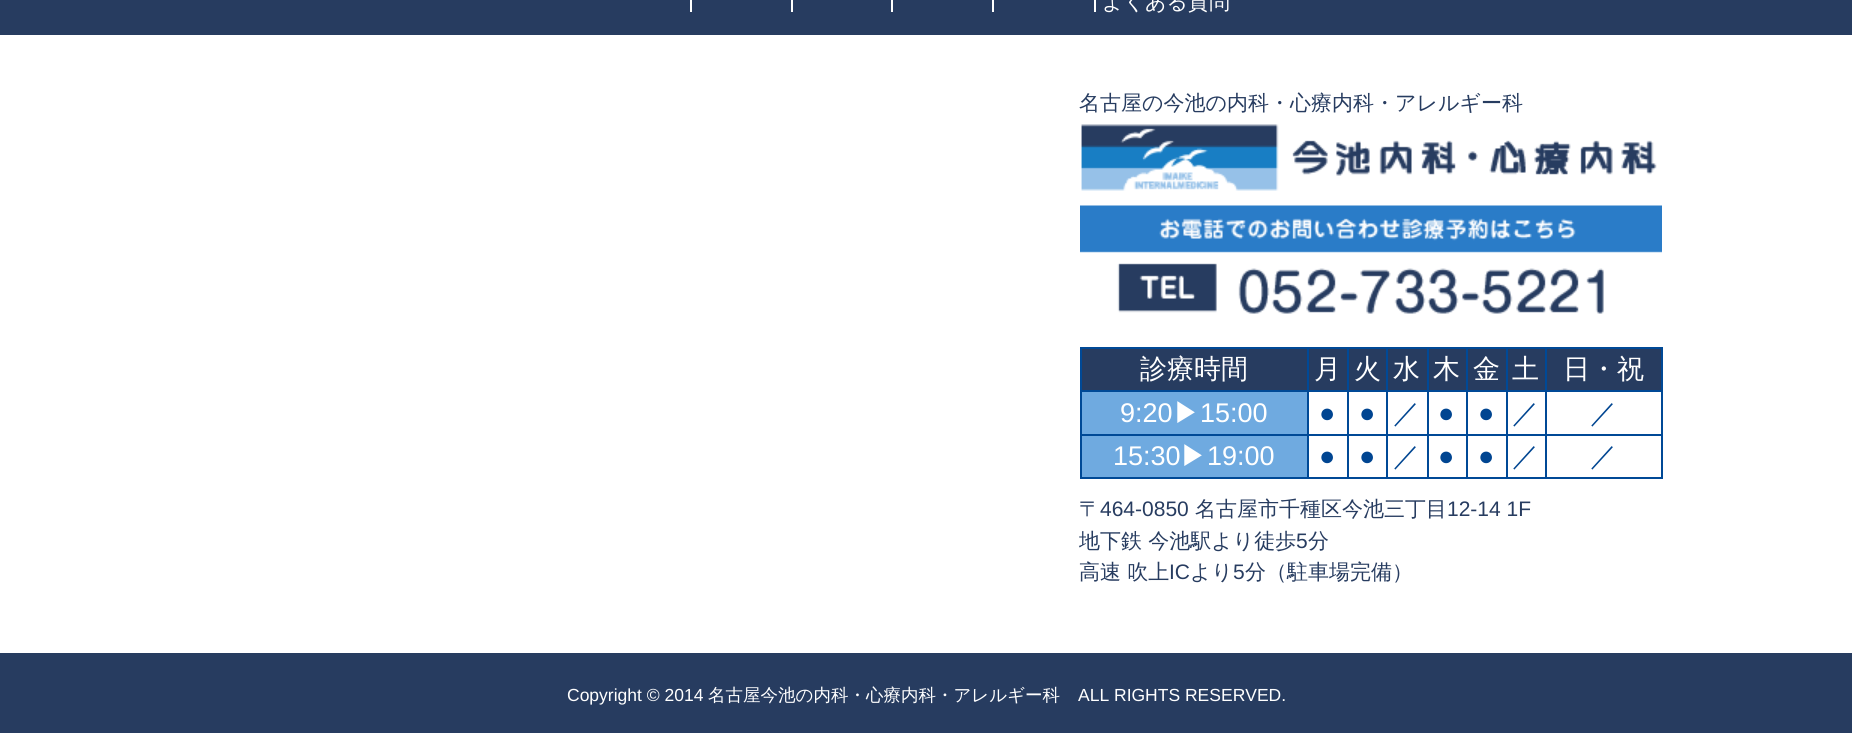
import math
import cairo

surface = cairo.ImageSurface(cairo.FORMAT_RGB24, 1852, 733)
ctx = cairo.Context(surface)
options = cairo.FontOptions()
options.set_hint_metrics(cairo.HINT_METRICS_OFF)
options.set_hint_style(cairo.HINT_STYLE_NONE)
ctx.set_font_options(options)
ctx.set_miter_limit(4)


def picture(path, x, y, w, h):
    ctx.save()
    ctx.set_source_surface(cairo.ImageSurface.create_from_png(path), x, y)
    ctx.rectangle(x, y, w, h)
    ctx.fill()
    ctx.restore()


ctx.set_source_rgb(1, 1, 1)
ctx.paint()
ctx.set_source_rgb(0.153, 0.235, 0.376)
ctx.rectangle(0, 0, 1852, 35)
ctx.fill()
ctx.set_source_rgb(1, 1, 1)
ctx.rectangle(690, 0, 2, 12)
ctx.fill()
ctx.rectangle(791, 0, 2, 12)
ctx.fill()
ctx.rectangle(891, 0, 2, 12)
ctx.fill()
ctx.rectangle(992, 0, 2, 12)
ctx.fill()
ctx.rectangle(1094, 0, 2, 12)
ctx.fill()
ctx.select_font_face("WenQuanYi Zen Hei Medium")
ctx.set_font_size(21)
ctx.move_to(1102, 9)
ctx.show_text("よくある質問")
ctx.set_source_rgb(0.153, 0.235, 0.376)
ctx.move_to(1079, 110)
ctx.show_text("名古屋の今池の内科・心療内科・アレルギー科")
picture("img1.png", 1081, 124, 576, 67)
picture("img2.png", 1080, 205, 582, 109)
ctx.rectangle(1082, 349, 225, 41)
ctx.fill()
ctx.set_source_rgb(0, 0.286, 0.588)
ctx.rectangle(1545, 347, 117, 2)
ctx.fill()
ctx.rectangle(1545, 390, 117, 2)
ctx.fill()
ctx.rectangle(1545, 434, 117, 2)
ctx.fill()
ctx.rectangle(1661, 434, 2, 45)
ctx.fill()
ctx.rectangle(1545, 477, 117, 2)
ctx.fill()
ctx.rectangle(1545, 434, 2, 45)
ctx.fill()
ctx.rectangle(1506, 434, 41, 2)
ctx.fill()
ctx.rectangle(1545, 390, 2, 45)
ctx.fill()
ctx.rectangle(1506, 390, 41, 2)
ctx.fill()
ctx.rectangle(1545, 347, 2, 45)
ctx.fill()
ctx.rectangle(1506, 347, 41, 2)
ctx.fill()
ctx.rectangle(1506, 477, 41, 2)
ctx.fill()
ctx.rectangle(1506, 434, 2, 45)
ctx.fill()
ctx.rectangle(1466, 434, 42, 2)
ctx.fill()
ctx.rectangle(1506, 390, 2, 45)
ctx.fill()
ctx.rectangle(1466, 390, 42, 2)
ctx.fill()
ctx.rectangle(1506, 347, 2, 45)
ctx.fill()
ctx.rectangle(1466, 347, 42, 2)
ctx.fill()
ctx.rectangle(1466, 477, 42, 2)
ctx.fill()
ctx.rectangle(1466, 434, 2, 45)
ctx.fill()
ctx.rectangle(1427, 434, 40, 2)
ctx.fill()
ctx.rectangle(1466, 390, 2, 45)
ctx.fill()
ctx.rectangle(1427, 390, 40, 2)
ctx.fill()
ctx.rectangle(1466, 347, 2, 45)
ctx.fill()
ctx.rectangle(1427, 347, 40, 2)
ctx.fill()
ctx.rectangle(1427, 477, 40, 2)
ctx.fill()
ctx.rectangle(1427, 434, 2, 45)
ctx.fill()
ctx.rectangle(1386, 434, 42, 2)
ctx.fill()
ctx.rectangle(1427, 390, 2, 45)
ctx.fill()
ctx.rectangle(1386, 390, 42, 2)
ctx.fill()
ctx.rectangle(1427, 347, 2, 45)
ctx.fill()
ctx.rectangle(1386, 347, 42, 2)
ctx.fill()
ctx.rectangle(1386, 477, 42, 2)
ctx.fill()
ctx.rectangle(1386, 434, 2, 45)
ctx.fill()
ctx.rectangle(1347, 434, 41, 2)
ctx.fill()
ctx.rectangle(1386, 390, 2, 45)
ctx.fill()
ctx.rectangle(1347, 390, 41, 2)
ctx.fill()
ctx.rectangle(1386, 347, 2, 45)
ctx.fill()
ctx.rectangle(1347, 347, 41, 2)
ctx.fill()
ctx.rectangle(1347, 477, 41, 2)
ctx.fill()
ctx.rectangle(1347, 434, 2, 45)
ctx.fill()
ctx.rectangle(1307, 434, 42, 2)
ctx.fill()
ctx.rectangle(1347, 390, 2, 45)
ctx.fill()
ctx.rectangle(1307, 390, 42, 2)
ctx.fill()
ctx.rectangle(1347, 347, 2, 45)
ctx.fill()
ctx.rectangle(1307, 347, 42, 2)
ctx.fill()
ctx.rectangle(1307, 477, 42, 2)
ctx.fill()
ctx.rectangle(1307, 434, 2, 45)
ctx.fill()
ctx.rectangle(1080, 434, 228, 2)
ctx.fill()
ctx.rectangle(1307, 390, 2, 45)
ctx.fill()
ctx.rectangle(1080, 390, 228, 2)
ctx.fill()
ctx.rectangle(1307, 347, 2, 45)
ctx.fill()
ctx.rectangle(1080, 347, 228, 2)
ctx.fill()
ctx.rectangle(1080, 477, 228, 2)
ctx.fill()
ctx.rectangle(1080, 434, 2, 45)
ctx.fill()
ctx.rectangle(1080, 390, 2, 45)
ctx.fill()
ctx.rectangle(1080, 347, 2, 45)
ctx.fill()
ctx.set_font_size(27)
ctx.set_source_rgb(1, 1, 1)
ctx.move_to(1140, 378)
ctx.show_text("診療時間")
ctx.set_source_rgb(0.153, 0.235, 0.376)
ctx.rectangle(1309, 349, 38, 41)
ctx.fill()
ctx.set_source_rgb(1, 1, 1)
ctx.move_to(1314, 378)
ctx.show_text("月")
ctx.set_source_rgb(0.153, 0.235, 0.376)
ctx.rectangle(1349, 349, 37, 41)
ctx.fill()
ctx.set_source_rgb(1, 1, 1)
ctx.move_to(1354, 378)
ctx.show_text("火")
ctx.set_source_rgb(0.153, 0.235, 0.376)
ctx.rectangle(1388, 349, 39, 41)
ctx.fill()
ctx.set_source_rgb(1, 1, 1)
ctx.move_to(1393, 378)
ctx.show_text("水")
ctx.set_source_rgb(0.153, 0.235, 0.376)
ctx.rectangle(1429, 349, 37, 41)
ctx.fill()
ctx.set_source_rgb(1, 1, 1)
ctx.move_to(1433, 378)
ctx.show_text("木")
ctx.set_source_rgb(0.153, 0.235, 0.376)
ctx.rectangle(1468, 349, 38, 41)
ctx.fill()
ctx.set_source_rgb(1, 1, 1)
ctx.move_to(1473, 378)
ctx.show_text("金")
ctx.set_source_rgb(0.153, 0.235, 0.376)
ctx.rectangle(1508, 349, 37, 41)
ctx.fill()
ctx.set_source_rgb(1, 1, 1)
ctx.move_to(1512, 378)
ctx.show_text("土")
ctx.set_source_rgb(0.153, 0.235, 0.376)
ctx.rectangle(1547, 349, 114, 41)
ctx.fill()
ctx.set_source_rgb(0, 0.286, 0.588)
ctx.rectangle(1661, 390, 2, 45)
ctx.fill()
ctx.rectangle(1661, 347, 2, 45)
ctx.fill()
ctx.set_source_rgb(1, 1, 1)
ctx.move_to(1563, 378)
ctx.show_text("日・祝")
ctx.set_source_rgb(0.435, 0.667, 0.878)
ctx.rectangle(1082, 392, 225, 42)
ctx.fill()
ctx.select_font_face("Liberation Sans")
ctx.set_source_rgb(1, 1, 1)
ctx.move_to(1120, 422)
ctx.show_text("9:20")
ctx.select_font_face("WenQuanYi Zen Hei Medium")
ctx.move_to(1173, 422)
ctx.show_text("▶")
ctx.select_font_face("Liberation Sans")
ctx.move_to(1200, 422)
ctx.show_text("15:00")
ctx.set_source_rgb(0, 0.271, 0.569)
ctx.move_to(1319, 422)
ctx.show_text("●")
ctx.move_to(1359, 422)
ctx.show_text("●")
ctx.select_font_face("WenQuanYi Zen Hei Medium")
ctx.move_to(1393, 422)
ctx.show_text("／")
ctx.select_font_face("Liberation Sans")
ctx.move_to(1438, 422)
ctx.show_text("●")
ctx.move_to(1478, 422)
ctx.show_text("●")
ctx.select_font_face("WenQuanYi Zen Hei Medium")
ctx.move_to(1512, 422)
ctx.show_text("／")
ctx.move_to(1590, 422)
ctx.show_text("／")
ctx.set_source_rgb(0.435, 0.667, 0.878)
ctx.rectangle(1082, 436, 225, 41)
ctx.fill()
ctx.select_font_face("Liberation Sans")
ctx.set_source_rgb(1, 1, 1)
ctx.move_to(1113, 465)
ctx.show_text("15:30")
ctx.select_font_face("WenQuanYi Zen Hei Medium")
ctx.move_to(1180, 465)
ctx.show_text("▶")
ctx.select_font_face("Liberation Sans")
ctx.move_to(1207, 465)
ctx.show_text("19:00")
ctx.set_source_rgb(0, 0.271, 0.569)
ctx.move_to(1319, 465)
ctx.show_text("●")
ctx.move_to(1359, 465)
ctx.show_text("●")
ctx.select_font_face("WenQuanYi Zen Hei Medium")
ctx.move_to(1393, 465)
ctx.show_text("／")
ctx.select_font_face("Liberation Sans")
ctx.move_to(1438, 465)
ctx.show_text("●")
ctx.move_to(1478, 465)
ctx.show_text("●")
ctx.select_font_face("WenQuanYi Zen Hei Medium")
ctx.move_to(1512, 465)
ctx.show_text("／")
ctx.move_to(1590, 465)
ctx.show_text("／")
ctx.set_font_size(21)
ctx.set_source_rgb(0.153, 0.235, 0.376)
ctx.move_to(1079, 516)
ctx.show_text("〒")
ctx.select_font_face("Liberation Sans")
ctx.move_to(1100, 516)
ctx.show_text("464-0850")
ctx.select_font_face("WenQuanYi Zen Hei Medium")
ctx.move_to(1195, 516)
ctx.show_text("名古屋市千種区今池三丁目")
ctx.select_font_face("Liberation Sans")
ctx.move_to(1447, 516)
ctx.show_text("12-14 1F")
ctx.select_font_face("WenQuanYi Zen Hei Medium")
ctx.move_to(1079, 548)
ctx.show_text("地下鉄 今池駅より徒歩")
ctx.select_font_face("Liberation Sans")
ctx.move_to(1296, 548)
ctx.show_text("5")
ctx.select_font_face("WenQuanYi Zen Hei Medium")
ctx.move_to(1308, 548)
ctx.show_text("分")
ctx.move_to(1079, 579)
ctx.show_text("高速 吹上")
ctx.select_font_face("Liberation Sans")
ctx.move_to(1169, 579)
ctx.show_text("IC")
ctx.select_font_face("WenQuanYi Zen Hei Medium")
ctx.move_to(1190, 579)
ctx.show_text("より")
ctx.select_font_face("Liberation Sans")
ctx.move_to(1233, 579)
ctx.show_text("5")
ctx.select_font_face("WenQuanYi Zen Hei Medium")
ctx.move_to(1245, 579)
ctx.show_text("分（駐車場完備）")
ctx.rectangle(0, 653, 1852, 80)
ctx.fill()
ctx.select_font_face("Liberation Sans")
ctx.set_font_size(17.5)
ctx.set_source_rgb(1, 1, 1)
ctx.move_to(567, 701)
ctx.show_text("Copyright © 2014")
ctx.select_font_face("WenQuanYi Zen Hei Medium")
ctx.move_to(708, 701)
ctx.show_text("名古屋今池の内科・心療内科・アレルギー科")
ctx.select_font_face("Liberation Sans")
ctx.move_to(1078, 701)
ctx.show_text("ALL RIGHTS RESERVED.")
surface.write_to_png("page.png")
